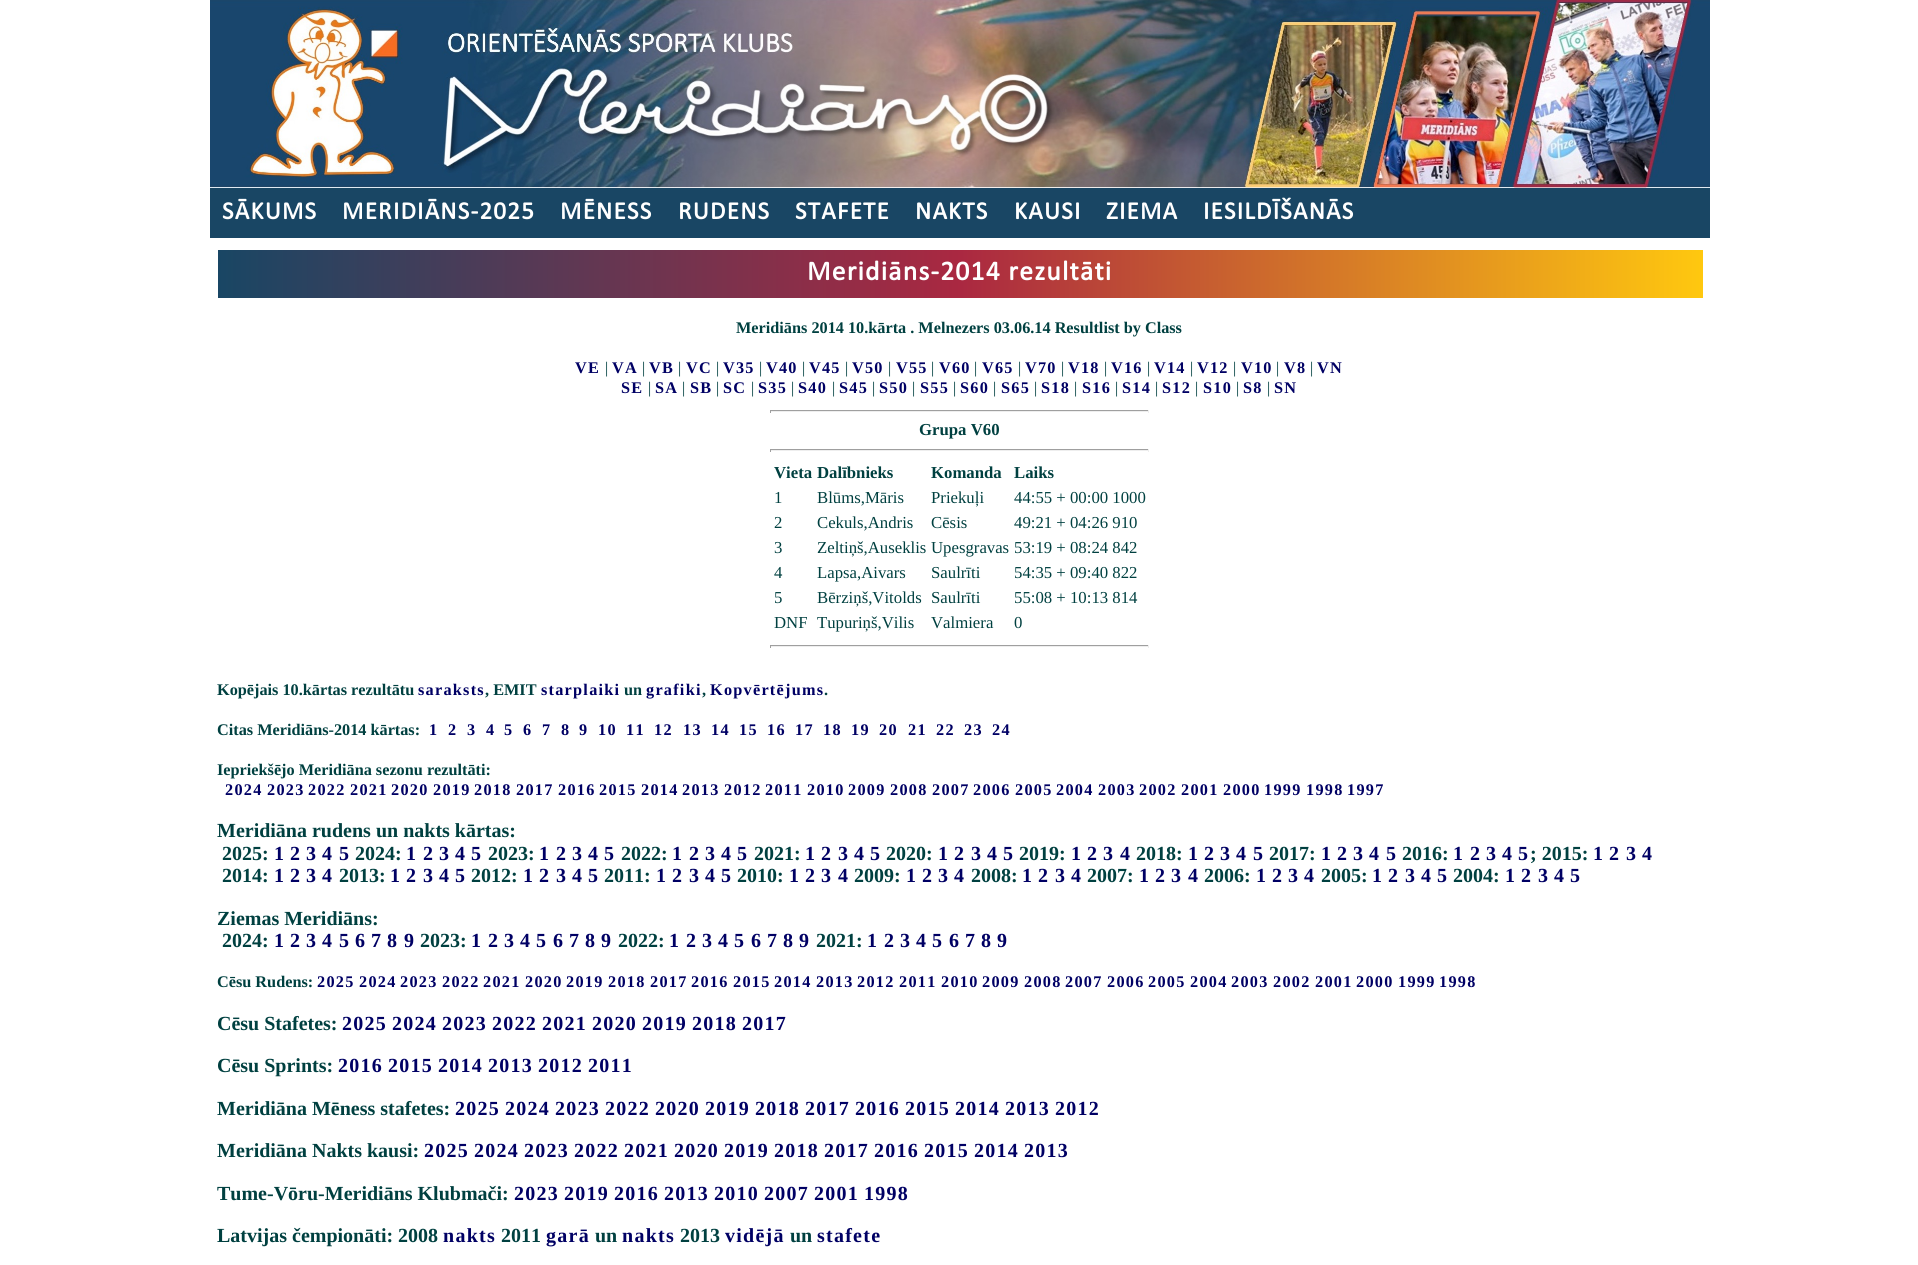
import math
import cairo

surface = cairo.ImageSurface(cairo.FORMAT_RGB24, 1918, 1265)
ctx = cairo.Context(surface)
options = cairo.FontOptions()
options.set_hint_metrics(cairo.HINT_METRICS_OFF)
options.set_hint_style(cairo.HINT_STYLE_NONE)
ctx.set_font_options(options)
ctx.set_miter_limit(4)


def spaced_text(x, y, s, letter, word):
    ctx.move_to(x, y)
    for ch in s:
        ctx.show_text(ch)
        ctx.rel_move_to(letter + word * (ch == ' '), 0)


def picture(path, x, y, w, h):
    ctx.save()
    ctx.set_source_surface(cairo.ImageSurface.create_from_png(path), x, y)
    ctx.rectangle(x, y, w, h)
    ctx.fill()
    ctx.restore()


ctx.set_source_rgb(1, 1, 1)
ctx.paint()
picture("img1.png", 210, 0, 1500, 188)
ctx.set_source_rgb(0.098, 0.275, 0.392)
ctx.rectangle(210, 188, 1500, 50)
ctx.fill()
ctx.select_font_face("Calibri", cairo.FONT_SLANT_NORMAL, cairo.FONT_WEIGHT_BOLD)
ctx.set_font_size(25)
ctx.set_source_rgb(1, 1, 1)
spaced_text(222, 219, "SĀKUMS", 1.25, 0)
spaced_text(342, 219, "MERIDIĀNS-2025", 1.25, 0)
spaced_text(560, 219, "MĒNESS", 1.25, 0)
spaced_text(678, 219, "RUDENS", 1.25, 0)
spaced_text(795, 219, "STAFETE", 1.25, 0)
spaced_text(915, 219, "NAKTS", 1.25, 0)
spaced_text(1014, 219, "KAUSI", 1.25, 0)
spaced_text(1106, 219, "ZIEMA", 1.25, 0)
spaced_text(1203, 219, "IESILDĪŠANĀS", 1.25, 0)
gradient = cairo.LinearGradient(218, 274, 1703, 274)
gradient.add_color_stop_rgba(0, 0.098, 0.275, 0.392, 1)
gradient.add_color_stop_rgba(0.5, 0.667, 0.157, 0.255, 1)
gradient.add_color_stop_rgba(1, 1, 0.784, 0.059, 1)
ctx.set_source(gradient)
ctx.rectangle(218, 250, 1485, 48)
ctx.fill()
ctx.set_font_size(27.5)
ctx.set_source_rgb(1, 1, 1)
spaced_text(807, 280, "Meridiāns-2014 rezultāti", 1.25, 0)
ctx.select_font_face("Liberation Serif", cairo.FONT_SLANT_NORMAL, cairo.FONT_WEIGHT_BOLD)
ctx.set_font_size(16.25)
ctx.set_source_rgb(0, 0.251, 0.251)
ctx.move_to(736, 333)
ctx.show_text("Meridiāns 2014 10.kārta . Melnezers 03.06.14 Resultlist by Class")
ctx.set_source_rgb(0, 0, 0.392)
spaced_text(575, 373, "VE", 1.25, 0)
ctx.select_font_face("Liberation Serif")
ctx.set_source_rgb(0, 0.251, 0.251)
ctx.move_to(605, 373)
ctx.show_text("|")
ctx.select_font_face("Liberation Serif", cairo.FONT_SLANT_NORMAL, cairo.FONT_WEIGHT_BOLD)
ctx.set_source_rgb(0, 0, 0.392)
spaced_text(612, 373, "VA", 1.25, 0)
ctx.select_font_face("Liberation Serif")
ctx.set_source_rgb(0, 0.251, 0.251)
ctx.move_to(642, 373)
ctx.show_text("|")
ctx.select_font_face("Liberation Serif", cairo.FONT_SLANT_NORMAL, cairo.FONT_WEIGHT_BOLD)
ctx.set_source_rgb(0, 0, 0.392)
spaced_text(649, 373, "VB", 1.25, 0)
ctx.select_font_face("Liberation Serif")
ctx.set_source_rgb(0, 0.251, 0.251)
ctx.move_to(678, 373)
ctx.show_text("|")
ctx.select_font_face("Liberation Serif", cairo.FONT_SLANT_NORMAL, cairo.FONT_WEIGHT_BOLD)
ctx.set_source_rgb(0, 0, 0.392)
spaced_text(686, 373, "VC", 1.25, 0)
ctx.select_font_face("Liberation Serif")
ctx.set_source_rgb(0, 0.251, 0.251)
ctx.move_to(716, 373)
ctx.show_text("|")
ctx.select_font_face("Liberation Serif", cairo.FONT_SLANT_NORMAL, cairo.FONT_WEIGHT_BOLD)
ctx.set_source_rgb(0, 0, 0.392)
spaced_text(723, 373, "V35", 1.25, 0)
ctx.select_font_face("Liberation Serif")
ctx.set_source_rgb(0, 0.251, 0.251)
ctx.move_to(759, 373)
ctx.show_text("|")
ctx.select_font_face("Liberation Serif", cairo.FONT_SLANT_NORMAL, cairo.FONT_WEIGHT_BOLD)
ctx.set_source_rgb(0, 0, 0.392)
spaced_text(766, 373, "V40", 1.25, 0)
ctx.select_font_face("Liberation Serif")
ctx.set_source_rgb(0, 0.251, 0.251)
ctx.move_to(802, 373)
ctx.show_text("|")
ctx.select_font_face("Liberation Serif", cairo.FONT_SLANT_NORMAL, cairo.FONT_WEIGHT_BOLD)
ctx.set_source_rgb(0, 0, 0.392)
spaced_text(809, 373, "V45", 1.25, 0)
ctx.select_font_face("Liberation Serif")
ctx.set_source_rgb(0, 0.251, 0.251)
ctx.move_to(845, 373)
ctx.show_text("|")
ctx.select_font_face("Liberation Serif", cairo.FONT_SLANT_NORMAL, cairo.FONT_WEIGHT_BOLD)
ctx.set_source_rgb(0, 0, 0.392)
spaced_text(852, 373, "V50", 1.25, 0)
ctx.select_font_face("Liberation Serif")
ctx.set_source_rgb(0, 0.251, 0.251)
ctx.move_to(888, 373)
ctx.show_text("|")
ctx.select_font_face("Liberation Serif", cairo.FONT_SLANT_NORMAL, cairo.FONT_WEIGHT_BOLD)
ctx.set_source_rgb(0, 0, 0.392)
spaced_text(896, 373, "V55", 1.25, 0)
ctx.select_font_face("Liberation Serif")
ctx.set_source_rgb(0, 0.251, 0.251)
ctx.move_to(931, 373)
ctx.show_text("|")
ctx.select_font_face("Liberation Serif", cairo.FONT_SLANT_NORMAL, cairo.FONT_WEIGHT_BOLD)
ctx.set_source_rgb(0, 0, 0.392)
spaced_text(939, 373, "V60", 1.25, 0)
ctx.select_font_face("Liberation Serif")
ctx.set_source_rgb(0, 0.251, 0.251)
ctx.move_to(974, 373)
ctx.show_text("|")
ctx.select_font_face("Liberation Serif", cairo.FONT_SLANT_NORMAL, cairo.FONT_WEIGHT_BOLD)
ctx.set_source_rgb(0, 0, 0.392)
spaced_text(982, 373, "V65", 1.25, 0)
ctx.select_font_face("Liberation Serif")
ctx.set_source_rgb(0, 0.251, 0.251)
ctx.move_to(1018, 373)
ctx.show_text("|")
ctx.select_font_face("Liberation Serif", cairo.FONT_SLANT_NORMAL, cairo.FONT_WEIGHT_BOLD)
ctx.set_source_rgb(0, 0, 0.392)
spaced_text(1025, 373, "V70", 1.25, 0)
ctx.select_font_face("Liberation Serif")
ctx.set_source_rgb(0, 0.251, 0.251)
ctx.move_to(1061, 373)
ctx.show_text("|")
ctx.select_font_face("Liberation Serif", cairo.FONT_SLANT_NORMAL, cairo.FONT_WEIGHT_BOLD)
ctx.set_source_rgb(0, 0, 0.392)
spaced_text(1068, 373, "V18", 1.25, 0)
ctx.select_font_face("Liberation Serif")
ctx.set_source_rgb(0, 0.251, 0.251)
ctx.move_to(1104, 373)
ctx.show_text("|")
ctx.select_font_face("Liberation Serif", cairo.FONT_SLANT_NORMAL, cairo.FONT_WEIGHT_BOLD)
ctx.set_source_rgb(0, 0, 0.392)
spaced_text(1111, 373, "V16", 1.25, 0)
ctx.select_font_face("Liberation Serif")
ctx.set_source_rgb(0, 0.251, 0.251)
ctx.move_to(1147, 373)
ctx.show_text("|")
ctx.select_font_face("Liberation Serif", cairo.FONT_SLANT_NORMAL, cairo.FONT_WEIGHT_BOLD)
ctx.set_source_rgb(0, 0, 0.392)
spaced_text(1154, 373, "V14", 1.25, 0)
ctx.select_font_face("Liberation Serif")
ctx.set_source_rgb(0, 0.251, 0.251)
ctx.move_to(1190, 373)
ctx.show_text("|")
ctx.select_font_face("Liberation Serif", cairo.FONT_SLANT_NORMAL, cairo.FONT_WEIGHT_BOLD)
ctx.set_source_rgb(0, 0, 0.392)
spaced_text(1197, 373, "V12", 1.25, 0)
ctx.select_font_face("Liberation Serif")
ctx.set_source_rgb(0, 0.251, 0.251)
ctx.move_to(1233, 373)
ctx.show_text("|")
ctx.select_font_face("Liberation Serif", cairo.FONT_SLANT_NORMAL, cairo.FONT_WEIGHT_BOLD)
ctx.set_source_rgb(0, 0, 0.392)
spaced_text(1241, 373, "V10", 1.25, 0)
ctx.select_font_face("Liberation Serif")
ctx.set_source_rgb(0, 0.251, 0.251)
ctx.move_to(1276, 373)
ctx.show_text("|")
ctx.select_font_face("Liberation Serif", cairo.FONT_SLANT_NORMAL, cairo.FONT_WEIGHT_BOLD)
ctx.set_source_rgb(0, 0, 0.392)
spaced_text(1284, 373, "V8", 1.25, 0)
ctx.select_font_face("Liberation Serif")
ctx.set_source_rgb(0, 0.251, 0.251)
ctx.move_to(1310, 373)
ctx.show_text("|")
ctx.select_font_face("Liberation Serif", cairo.FONT_SLANT_NORMAL, cairo.FONT_WEIGHT_BOLD)
ctx.set_source_rgb(0, 0, 0.392)
spaced_text(1317, 373, "VN", 1.25, 0)
spaced_text(621, 393, "SE", 1.25, 0)
ctx.select_font_face("Liberation Serif")
ctx.set_source_rgb(0, 0.251, 0.251)
ctx.move_to(648, 393)
ctx.show_text("|")
ctx.select_font_face("Liberation Serif", cairo.FONT_SLANT_NORMAL, cairo.FONT_WEIGHT_BOLD)
ctx.set_source_rgb(0, 0, 0.392)
spaced_text(655, 393, "SA", 1.25, 0)
ctx.select_font_face("Liberation Serif")
ctx.set_source_rgb(0, 0.251, 0.251)
ctx.move_to(682, 393)
ctx.show_text("|")
ctx.select_font_face("Liberation Serif", cairo.FONT_SLANT_NORMAL, cairo.FONT_WEIGHT_BOLD)
ctx.set_source_rgb(0, 0, 0.392)
spaced_text(690, 393, "SB", 1.25, 0)
ctx.select_font_face("Liberation Serif")
ctx.set_source_rgb(0, 0.251, 0.251)
ctx.move_to(716, 393)
ctx.show_text("|")
ctx.select_font_face("Liberation Serif", cairo.FONT_SLANT_NORMAL, cairo.FONT_WEIGHT_BOLD)
ctx.set_source_rgb(0, 0, 0.392)
spaced_text(723, 393, "SC", 1.25, 0)
ctx.select_font_face("Liberation Serif")
ctx.set_source_rgb(0, 0.251, 0.251)
ctx.move_to(751, 393)
ctx.show_text("|")
ctx.select_font_face("Liberation Serif", cairo.FONT_SLANT_NORMAL, cairo.FONT_WEIGHT_BOLD)
ctx.set_source_rgb(0, 0, 0.392)
spaced_text(758, 393, "S35", 1.25, 0)
ctx.select_font_face("Liberation Serif")
ctx.set_source_rgb(0, 0.251, 0.251)
ctx.move_to(791, 393)
ctx.show_text("|")
ctx.select_font_face("Liberation Serif", cairo.FONT_SLANT_NORMAL, cairo.FONT_WEIGHT_BOLD)
ctx.set_source_rgb(0, 0, 0.392)
spaced_text(798, 393, "S40", 1.25, 0)
ctx.select_font_face("Liberation Serif")
ctx.set_source_rgb(0, 0.251, 0.251)
ctx.move_to(832, 393)
ctx.show_text("|")
ctx.select_font_face("Liberation Serif", cairo.FONT_SLANT_NORMAL, cairo.FONT_WEIGHT_BOLD)
ctx.set_source_rgb(0, 0, 0.392)
spaced_text(839, 393, "S45", 1.25, 0)
ctx.select_font_face("Liberation Serif")
ctx.set_source_rgb(0, 0.251, 0.251)
ctx.move_to(872, 393)
ctx.show_text("|")
ctx.select_font_face("Liberation Serif", cairo.FONT_SLANT_NORMAL, cairo.FONT_WEIGHT_BOLD)
ctx.set_source_rgb(0, 0, 0.392)
spaced_text(879, 393, "S50", 1.25, 0)
ctx.select_font_face("Liberation Serif")
ctx.set_source_rgb(0, 0.251, 0.251)
ctx.move_to(912, 393)
ctx.show_text("|")
ctx.select_font_face("Liberation Serif", cairo.FONT_SLANT_NORMAL, cairo.FONT_WEIGHT_BOLD)
ctx.set_source_rgb(0, 0, 0.392)
spaced_text(920, 393, "S55", 1.25, 0)
ctx.select_font_face("Liberation Serif")
ctx.set_source_rgb(0, 0.251, 0.251)
ctx.move_to(953, 393)
ctx.show_text("|")
ctx.select_font_face("Liberation Serif", cairo.FONT_SLANT_NORMAL, cairo.FONT_WEIGHT_BOLD)
ctx.set_source_rgb(0, 0, 0.392)
spaced_text(960, 393, "S60", 1.25, 0)
ctx.select_font_face("Liberation Serif")
ctx.set_source_rgb(0, 0.251, 0.251)
ctx.move_to(993, 393)
ctx.show_text("|")
ctx.select_font_face("Liberation Serif", cairo.FONT_SLANT_NORMAL, cairo.FONT_WEIGHT_BOLD)
ctx.set_source_rgb(0, 0, 0.392)
spaced_text(1001, 393, "S65", 1.25, 0)
ctx.select_font_face("Liberation Serif")
ctx.set_source_rgb(0, 0.251, 0.251)
ctx.move_to(1034, 393)
ctx.show_text("|")
ctx.select_font_face("Liberation Serif", cairo.FONT_SLANT_NORMAL, cairo.FONT_WEIGHT_BOLD)
ctx.set_source_rgb(0, 0, 0.392)
spaced_text(1041, 393, "S18", 1.25, 0)
ctx.select_font_face("Liberation Serif")
ctx.set_source_rgb(0, 0.251, 0.251)
ctx.move_to(1074, 393)
ctx.show_text("|")
ctx.select_font_face("Liberation Serif", cairo.FONT_SLANT_NORMAL, cairo.FONT_WEIGHT_BOLD)
ctx.set_source_rgb(0, 0, 0.392)
spaced_text(1082, 393, "S16", 1.25, 0)
ctx.select_font_face("Liberation Serif")
ctx.set_source_rgb(0, 0.251, 0.251)
ctx.move_to(1115, 393)
ctx.show_text("|")
ctx.select_font_face("Liberation Serif", cairo.FONT_SLANT_NORMAL, cairo.FONT_WEIGHT_BOLD)
ctx.set_source_rgb(0, 0, 0.392)
spaced_text(1122, 393, "S14", 1.25, 0)
ctx.select_font_face("Liberation Serif")
ctx.set_source_rgb(0, 0.251, 0.251)
ctx.move_to(1155, 393)
ctx.show_text("|")
ctx.select_font_face("Liberation Serif", cairo.FONT_SLANT_NORMAL, cairo.FONT_WEIGHT_BOLD)
ctx.set_source_rgb(0, 0, 0.392)
spaced_text(1162, 393, "S12", 1.25, 0)
ctx.select_font_face("Liberation Serif")
ctx.set_source_rgb(0, 0.251, 0.251)
ctx.move_to(1195, 393)
ctx.show_text("|")
ctx.select_font_face("Liberation Serif", cairo.FONT_SLANT_NORMAL, cairo.FONT_WEIGHT_BOLD)
ctx.set_source_rgb(0, 0, 0.392)
spaced_text(1203, 393, "S10", 1.25, 0)
ctx.select_font_face("Liberation Serif")
ctx.set_source_rgb(0, 0.251, 0.251)
ctx.move_to(1236, 393)
ctx.show_text("|")
ctx.select_font_face("Liberation Serif", cairo.FONT_SLANT_NORMAL, cairo.FONT_WEIGHT_BOLD)
ctx.set_source_rgb(0, 0, 0.392)
spaced_text(1243, 393, "S8", 1.25, 0)
ctx.select_font_face("Liberation Serif")
ctx.set_source_rgb(0, 0.251, 0.251)
ctx.move_to(1267, 393)
ctx.show_text("|")
ctx.select_font_face("Liberation Serif", cairo.FONT_SLANT_NORMAL, cairo.FONT_WEIGHT_BOLD)
ctx.set_source_rgb(0, 0, 0.392)
spaced_text(1274, 393, "SN", 1.25, 0)
ctx.set_source_rgb(0.624, 0.624, 0.624)
ctx.rectangle(770, 410, 379, 1)
ctx.fill()
ctx.set_source_rgb(0.933, 0.933, 0.933)
ctx.rectangle(1148, 410, 1, 3)
ctx.fill()
ctx.rectangle(770, 411, 379, 1)
ctx.fill()
ctx.set_source_rgb(0.624, 0.624, 0.624)
ctx.rectangle(770, 410, 1, 3)
ctx.fill()
ctx.set_font_size(16.75)
ctx.set_source_rgb(0, 0.251, 0.251)
ctx.move_to(919, 435)
ctx.show_text("Grupa V60")
ctx.set_source_rgb(0.624, 0.624, 0.624)
ctx.rectangle(770, 449, 379, 1)
ctx.fill()
ctx.set_source_rgb(0.933, 0.933, 0.933)
ctx.rectangle(1148, 449, 1, 3)
ctx.fill()
ctx.rectangle(770, 450, 379, 1)
ctx.fill()
ctx.set_source_rgb(0.624, 0.624, 0.624)
ctx.rectangle(770, 449, 1, 3)
ctx.fill()
ctx.set_source_rgb(0, 0.251, 0.251)
ctx.move_to(774, 478)
ctx.show_text("Vieta")
ctx.move_to(817, 478)
ctx.show_text("Dalībnieks")
ctx.move_to(931, 478)
ctx.show_text("Komanda")
ctx.move_to(1014, 478)
ctx.show_text("Laiks")
ctx.select_font_face("Liberation Serif")
ctx.move_to(774, 503)
ctx.show_text("1")
ctx.move_to(817, 503)
ctx.show_text("Blūms,Māris")
ctx.move_to(931, 503)
ctx.show_text("Priekuļi")
ctx.move_to(1014, 503)
ctx.show_text("44:55 + 00:00 1000")
ctx.move_to(774, 528)
ctx.show_text("2")
ctx.move_to(817, 528)
ctx.show_text("Cekuls,Andris")
ctx.move_to(931, 528)
ctx.show_text("Cēsis")
ctx.move_to(1014, 528)
ctx.show_text("49:21 + 04:26 910")
ctx.move_to(774, 553)
ctx.show_text("3")
ctx.move_to(817, 553)
ctx.show_text("Zeltiņš,Auseklis")
ctx.move_to(931, 553)
ctx.show_text("Upesgravas")
ctx.move_to(1014, 553)
ctx.show_text("53:19 + 08:24 842")
ctx.move_to(774, 578)
ctx.show_text("4")
ctx.move_to(817, 578)
ctx.show_text("Lapsa,Aivars")
ctx.move_to(931, 578)
ctx.show_text("Saulrīti")
ctx.move_to(1014, 578)
ctx.show_text("54:35 + 09:40 822")
ctx.move_to(774, 603)
ctx.show_text("5")
ctx.move_to(817, 603)
ctx.show_text("Bērziņš,Vitolds")
ctx.move_to(931, 603)
ctx.show_text("Saulrīti")
ctx.move_to(1014, 603)
ctx.show_text("55:08 + 10:13 814")
ctx.move_to(774, 628)
ctx.show_text("DNF")
ctx.move_to(817, 628)
ctx.show_text("Tupuriņš,Vilis")
ctx.move_to(931, 628)
ctx.show_text("Valmiera")
ctx.move_to(1014, 628)
ctx.show_text("0")
ctx.set_source_rgb(0.624, 0.624, 0.624)
ctx.rectangle(770, 645, 379, 1)
ctx.fill()
ctx.set_source_rgb(0.933, 0.933, 0.933)
ctx.rectangle(1148, 645, 1, 3)
ctx.fill()
ctx.rectangle(770, 646, 379, 1)
ctx.fill()
ctx.set_source_rgb(0.624, 0.624, 0.624)
ctx.rectangle(770, 645, 1, 3)
ctx.fill()
ctx.select_font_face("Liberation Serif", cairo.FONT_SLANT_NORMAL, cairo.FONT_WEIGHT_BOLD)
ctx.set_font_size(16.25)
ctx.set_source_rgb(0, 0.251, 0.251)
ctx.move_to(217, 695)
ctx.show_text("Kopējais 10.kārtas rezultātu")
ctx.set_source_rgb(0, 0, 0.392)
spaced_text(418, 695, "saraksts", 1.25, 0)
ctx.set_source_rgb(0, 0.251, 0.251)
ctx.move_to(485, 695)
ctx.show_text(", EMIT")
ctx.set_source_rgb(0, 0, 0.392)
spaced_text(541, 695, "starplaiki", 1.25, 0)
ctx.set_source_rgb(0, 0.251, 0.251)
ctx.move_to(624, 695)
ctx.show_text("un")
ctx.set_source_rgb(0, 0, 0.392)
spaced_text(646, 695, "grafiki", 1.25, 0)
ctx.set_source_rgb(0, 0.251, 0.251)
ctx.move_to(702, 695)
ctx.show_text(",")
ctx.set_source_rgb(0, 0, 0.392)
spaced_text(710, 695, "Kopvērtējums", 1.25, 0)
ctx.set_source_rgb(0, 0.251, 0.251)
ctx.move_to(824, 695)
ctx.show_text(".")
ctx.move_to(217, 735)
ctx.show_text("Citas Meridiāns-2014 kārtas:")
ctx.set_source_rgb(0, 0, 0.392)
spaced_text(429, 735, "1", 1.25, 0)
spaced_text(448, 735, "2", 1.25, 0)
spaced_text(467, 735, "3", 1.25, 0)
spaced_text(486, 735, "4", 1.25, 0)
spaced_text(504, 735, "5", 1.25, 0)
spaced_text(523, 735, "6", 1.25, 0)
spaced_text(542, 735, "7", 1.25, 0)
spaced_text(561, 735, "8", 1.25, 0)
spaced_text(579, 735, "9", 1.25, 0)
spaced_text(598, 735, "10", 1.25, 0)
spaced_text(626, 735, "11", 1.25, 0)
spaced_text(654, 735, "12", 1.25, 0)
spaced_text(683, 735, "13", 1.25, 0)
spaced_text(711, 735, "14", 1.25, 0)
spaced_text(739, 735, "15", 1.25, 0)
spaced_text(767, 735, "16", 1.25, 0)
spaced_text(795, 735, "17", 1.25, 0)
spaced_text(823, 735, "18", 1.25, 0)
spaced_text(851, 735, "19", 1.25, 0)
spaced_text(879, 735, "20", 1.25, 0)
spaced_text(908, 735, "21", 1.25, 0)
spaced_text(936, 735, "22", 1.25, 0)
spaced_text(964, 735, "23", 1.25, 0)
spaced_text(992, 735, "24", 1.25, 0)
ctx.set_source_rgb(0, 0.251, 0.251)
ctx.move_to(217, 775)
ctx.show_text("Iepriekšējo Meridiāna sezonu rezultāti:")
ctx.set_source_rgb(0, 0, 0.392)
spaced_text(225, 795, "2024", 1.25, 0)
spaced_text(267, 795, "2023", 1.25, 0)
spaced_text(308, 795, "2022", 1.25, 0)
spaced_text(350, 795, "2021", 1.25, 0)
spaced_text(391, 795, "2020", 1.25, 0)
spaced_text(433, 795, "2019", 1.25, 0)
spaced_text(474, 795, "2018", 1.25, 0)
spaced_text(516, 795, "2017", 1.25, 0)
spaced_text(558, 795, "2016", 1.25, 0)
spaced_text(599, 795, "2015", 1.25, 0)
spaced_text(641, 795, "2014", 1.25, 0)
spaced_text(682, 795, "2013", 1.25, 0)
spaced_text(724, 795, "2012", 1.25, 0)
spaced_text(765, 795, "2011", 1.25, 0)
spaced_text(807, 795, "2010", 1.25, 0)
spaced_text(848, 795, "2009", 1.25, 0)
spaced_text(890, 795, "2008", 1.25, 0)
spaced_text(932, 795, "2007", 1.25, 0)
spaced_text(973, 795, "2006", 1.25, 0)
spaced_text(1015, 795, "2005", 1.25, 0)
spaced_text(1056, 795, "2004", 1.25, 0)
spaced_text(1098, 795, "2003", 1.25, 0)
spaced_text(1139, 795, "2002", 1.25, 0)
spaced_text(1181, 795, "2001", 1.25, 0)
spaced_text(1223, 795, "2000", 1.25, 0)
spaced_text(1264, 795, "1999", 1.25, 0)
spaced_text(1306, 795, "1998", 1.25, 0)
spaced_text(1347, 795, "1997", 1.25, 0)
ctx.set_font_size(20)
ctx.set_source_rgb(0, 0.251, 0.251)
ctx.move_to(217, 837)
ctx.show_text("Meridiāna rudens un nakts kārtas:")
ctx.move_to(222, 860)
ctx.show_text("2025:")
ctx.set_source_rgb(0, 0, 0.392)
spaced_text(274, 860, "1", 1.25, 0)
spaced_text(290, 860, "2", 1.25, 0)
spaced_text(306, 860, "3", 1.25, 0)
spaced_text(322, 860, "4", 1.25, 0)
spaced_text(339, 860, "5", 1.25, 0)
ctx.set_source_rgb(0, 0.251, 0.251)
ctx.move_to(355, 860)
ctx.show_text("2024:")
ctx.set_source_rgb(0, 0, 0.392)
spaced_text(406, 860, "1", 1.25, 0)
spaced_text(423, 860, "2", 1.25, 0)
spaced_text(439, 860, "3", 1.25, 0)
spaced_text(455, 860, "4", 1.25, 0)
spaced_text(471, 860, "5", 1.25, 0)
ctx.set_source_rgb(0, 0.251, 0.251)
ctx.move_to(488, 860)
ctx.show_text("2023:")
ctx.set_source_rgb(0, 0, 0.392)
spaced_text(539, 860, "1", 1.25, 0)
spaced_text(556, 860, "2", 1.25, 0)
spaced_text(572, 860, "3", 1.25, 0)
spaced_text(588, 860, "4", 1.25, 0)
spaced_text(604, 860, "5", 1.25, 0)
ctx.set_source_rgb(0, 0.251, 0.251)
ctx.move_to(621, 860)
ctx.show_text("2022:")
ctx.set_source_rgb(0, 0, 0.392)
spaced_text(672, 860, "1", 1.25, 0)
spaced_text(689, 860, "2", 1.25, 0)
spaced_text(705, 860, "3", 1.25, 0)
spaced_text(721, 860, "4", 1.25, 0)
spaced_text(737, 860, "5", 1.25, 0)
ctx.set_source_rgb(0, 0.251, 0.251)
ctx.move_to(754, 860)
ctx.show_text("2021:")
ctx.set_source_rgb(0, 0, 0.392)
spaced_text(805, 860, "1", 1.25, 0)
spaced_text(821, 860, "2", 1.25, 0)
spaced_text(838, 860, "3", 1.25, 0)
spaced_text(854, 860, "4", 1.25, 0)
spaced_text(870, 860, "5", 1.25, 0)
ctx.set_source_rgb(0, 0.251, 0.251)
ctx.move_to(886, 860)
ctx.show_text("2020:")
ctx.set_source_rgb(0, 0, 0.392)
spaced_text(938, 860, "1", 1.25, 0)
spaced_text(954, 860, "2", 1.25, 0)
spaced_text(971, 860, "3", 1.25, 0)
spaced_text(987, 860, "4", 1.25, 0)
spaced_text(1003, 860, "5", 1.25, 0)
ctx.set_source_rgb(0, 0.251, 0.251)
ctx.move_to(1019, 860)
ctx.show_text("2019:")
ctx.set_source_rgb(0, 0, 0.392)
spaced_text(1071, 860, "1", 1.25, 0)
spaced_text(1087, 860, "2", 1.25, 0)
spaced_text(1103, 860, "3", 1.25, 0)
spaced_text(1120, 860, "4", 1.25, 0)
ctx.set_source_rgb(0, 0.251, 0.251)
ctx.move_to(1136, 860)
ctx.show_text("2018:")
ctx.set_source_rgb(0, 0, 0.392)
spaced_text(1188, 860, "1", 1.25, 0)
spaced_text(1204, 860, "2", 1.25, 0)
spaced_text(1220, 860, "3", 1.25, 0)
spaced_text(1236, 860, "4", 1.25, 0)
spaced_text(1253, 860, "5", 1.25, 0)
ctx.set_source_rgb(0, 0.251, 0.251)
ctx.move_to(1269, 860)
ctx.show_text("2017:")
ctx.set_source_rgb(0, 0, 0.392)
spaced_text(1321, 860, "1", 1.25, 0)
spaced_text(1337, 860, "2", 1.25, 0)
spaced_text(1353, 860, "3", 1.25, 0)
spaced_text(1369, 860, "4", 1.25, 0)
spaced_text(1386, 860, "5", 1.25, 0)
ctx.set_source_rgb(0, 0.251, 0.251)
ctx.move_to(1402, 860)
ctx.show_text("2016:")
ctx.set_source_rgb(0, 0, 0.392)
spaced_text(1453, 860, "1", 1.25, 0)
spaced_text(1470, 860, "2", 1.25, 0)
spaced_text(1486, 860, "3", 1.25, 0)
spaced_text(1502, 860, "4", 1.25, 0)
spaced_text(1518, 860, "5", 1.25, 0)
ctx.set_source_rgb(0, 0.251, 0.251)
ctx.move_to(1530, 860)
ctx.show_text("; 2015:")
ctx.set_source_rgb(0, 0, 0.392)
spaced_text(1593, 860, "1", 1.25, 0)
spaced_text(1609, 860, "2", 1.25, 0)
spaced_text(1626, 860, "3", 1.25, 0)
spaced_text(1642, 860, "4", 1.25, 0)
ctx.set_source_rgb(0, 0.251, 0.251)
ctx.move_to(222, 882)
ctx.show_text("2014:")
ctx.set_source_rgb(0, 0, 0.392)
spaced_text(274, 882, "1", 1.25, 0)
spaced_text(290, 882, "2", 1.25, 0)
spaced_text(306, 882, "3", 1.25, 0)
spaced_text(322, 882, "4", 1.25, 0)
ctx.set_source_rgb(0, 0.251, 0.251)
ctx.move_to(339, 882)
ctx.show_text("2013:")
ctx.set_source_rgb(0, 0, 0.392)
spaced_text(390, 882, "1", 1.25, 0)
spaced_text(406, 882, "2", 1.25, 0)
spaced_text(423, 882, "3", 1.25, 0)
spaced_text(439, 882, "4", 1.25, 0)
spaced_text(455, 882, "5", 1.25, 0)
ctx.set_source_rgb(0, 0.251, 0.251)
ctx.move_to(471, 882)
ctx.show_text("2012:")
ctx.set_source_rgb(0, 0, 0.392)
spaced_text(523, 882, "1", 1.25, 0)
spaced_text(539, 882, "2", 1.25, 0)
spaced_text(556, 882, "3", 1.25, 0)
spaced_text(572, 882, "4", 1.25, 0)
spaced_text(588, 882, "5", 1.25, 0)
ctx.set_source_rgb(0, 0.251, 0.251)
ctx.move_to(604, 882)
ctx.show_text("2011:")
ctx.set_source_rgb(0, 0, 0.392)
spaced_text(656, 882, "1", 1.25, 0)
spaced_text(672, 882, "2", 1.25, 0)
spaced_text(689, 882, "3", 1.25, 0)
spaced_text(705, 882, "4", 1.25, 0)
spaced_text(721, 882, "5", 1.25, 0)
ctx.set_source_rgb(0, 0.251, 0.251)
ctx.move_to(737, 882)
ctx.show_text("2010:")
ctx.set_source_rgb(0, 0, 0.392)
spaced_text(789, 882, "1", 1.25, 0)
spaced_text(805, 882, "2", 1.25, 0)
spaced_text(821, 882, "3", 1.25, 0)
spaced_text(838, 882, "4", 1.25, 0)
ctx.set_source_rgb(0, 0.251, 0.251)
ctx.move_to(854, 882)
ctx.show_text("2009:")
ctx.set_source_rgb(0, 0, 0.392)
spaced_text(906, 882, "1", 1.25, 0)
spaced_text(922, 882, "2", 1.25, 0)
spaced_text(938, 882, "3", 1.25, 0)
spaced_text(954, 882, "4", 1.25, 0)
ctx.set_source_rgb(0, 0.251, 0.251)
ctx.move_to(971, 882)
ctx.show_text("2008:")
ctx.set_source_rgb(0, 0, 0.392)
spaced_text(1022, 882, "1", 1.25, 0)
spaced_text(1038, 882, "2", 1.25, 0)
spaced_text(1055, 882, "3", 1.25, 0)
spaced_text(1071, 882, "4", 1.25, 0)
ctx.set_source_rgb(0, 0.251, 0.251)
ctx.move_to(1087, 882)
ctx.show_text("2007:")
ctx.set_source_rgb(0, 0, 0.392)
spaced_text(1139, 882, "1", 1.25, 0)
spaced_text(1155, 882, "2", 1.25, 0)
spaced_text(1171, 882, "3", 1.25, 0)
spaced_text(1188, 882, "4", 1.25, 0)
ctx.set_source_rgb(0, 0.251, 0.251)
ctx.move_to(1204, 882)
ctx.show_text("2006:")
ctx.set_source_rgb(0, 0, 0.392)
spaced_text(1256, 882, "1", 1.25, 0)
spaced_text(1272, 882, "2", 1.25, 0)
spaced_text(1288, 882, "3", 1.25, 0)
spaced_text(1304, 882, "4", 1.25, 0)
ctx.set_source_rgb(0, 0.251, 0.251)
ctx.move_to(1321, 882)
ctx.show_text("2005:")
ctx.set_source_rgb(0, 0, 0.392)
spaced_text(1372, 882, "1", 1.25, 0)
spaced_text(1388, 882, "2", 1.25, 0)
spaced_text(1405, 882, "3", 1.25, 0)
spaced_text(1421, 882, "4", 1.25, 0)
spaced_text(1437, 882, "5", 1.25, 0)
ctx.set_source_rgb(0, 0.251, 0.251)
ctx.move_to(1453, 882)
ctx.show_text("2004:")
ctx.set_source_rgb(0, 0, 0.392)
spaced_text(1505, 882, "1", 1.25, 0)
spaced_text(1521, 882, "2", 1.25, 0)
spaced_text(1538, 882, "3", 1.25, 0)
spaced_text(1554, 882, "4", 1.25, 0)
spaced_text(1570, 882, "5", 1.25, 0)
ctx.set_source_rgb(0, 0.251, 0.251)
ctx.move_to(217, 925)
ctx.show_text("Ziemas Meridiāns:")
ctx.move_to(222, 947)
ctx.show_text("2024:")
ctx.set_source_rgb(0, 0, 0.392)
spaced_text(274, 947, "1", 1.25, 0)
spaced_text(290, 947, "2", 1.25, 0)
spaced_text(306, 947, "3", 1.25, 0)
spaced_text(322, 947, "4", 1.25, 0)
spaced_text(339, 947, "5", 1.25, 0)
spaced_text(355, 947, "6", 1.25, 0)
spaced_text(371, 947, "7", 1.25, 0)
spaced_text(387, 947, "8", 1.25, 0)
spaced_text(404, 947, "9", 1.25, 0)
ctx.set_source_rgb(0, 0.251, 0.251)
ctx.move_to(420, 947)
ctx.show_text("2023:")
ctx.set_source_rgb(0, 0, 0.392)
spaced_text(471, 947, "1", 1.25, 0)
spaced_text(488, 947, "2", 1.25, 0)
spaced_text(504, 947, "3", 1.25, 0)
spaced_text(520, 947, "4", 1.25, 0)
spaced_text(536, 947, "5", 1.25, 0)
spaced_text(553, 947, "6", 1.25, 0)
spaced_text(569, 947, "7", 1.25, 0)
spaced_text(585, 947, "8", 1.25, 0)
spaced_text(601, 947, "9", 1.25, 0)
ctx.set_source_rgb(0, 0.251, 0.251)
ctx.move_to(618, 947)
ctx.show_text("2022:")
ctx.set_source_rgb(0, 0, 0.392)
spaced_text(669, 947, "1", 1.25, 0)
spaced_text(686, 947, "2", 1.25, 0)
spaced_text(702, 947, "3", 1.25, 0)
spaced_text(718, 947, "4", 1.25, 0)
spaced_text(734, 947, "5", 1.25, 0)
spaced_text(751, 947, "6", 1.25, 0)
spaced_text(767, 947, "7", 1.25, 0)
spaced_text(783, 947, "8", 1.25, 0)
spaced_text(799, 947, "9", 1.25, 0)
ctx.set_source_rgb(0, 0.251, 0.251)
ctx.move_to(816, 947)
ctx.show_text("2021:")
ctx.set_source_rgb(0, 0, 0.392)
spaced_text(867, 947, "1", 1.25, 0)
spaced_text(884, 947, "2", 1.25, 0)
spaced_text(900, 947, "3", 1.25, 0)
spaced_text(916, 947, "4", 1.25, 0)
spaced_text(932, 947, "5", 1.25, 0)
spaced_text(949, 947, "6", 1.25, 0)
spaced_text(965, 947, "7", 1.25, 0)
spaced_text(981, 947, "8", 1.25, 0)
spaced_text(997, 947, "9", 1.25, 0)
ctx.set_font_size(16.25)
ctx.set_source_rgb(0, 0.251, 0.251)
ctx.move_to(217, 987)
ctx.show_text("Cēsu Rudens:")
ctx.set_source_rgb(0, 0, 0.392)
spaced_text(317, 987, "2025", 1.25, 0)
spaced_text(359, 987, "2024", 1.25, 0)
spaced_text(400, 987, "2023", 1.25, 0)
spaced_text(442, 987, "2022", 1.25, 0)
spaced_text(483, 987, "2021", 1.25, 0)
spaced_text(525, 987, "2020", 1.25, 0)
spaced_text(566, 987, "2019", 1.25, 0)
spaced_text(608, 987, "2018", 1.25, 0)
spaced_text(650, 987, "2017", 1.25, 0)
spaced_text(691, 987, "2016", 1.25, 0)
spaced_text(733, 987, "2015", 1.25, 0)
spaced_text(774, 987, "2014", 1.25, 0)
spaced_text(816, 987, "2013", 1.25, 0)
spaced_text(857, 987, "2012", 1.25, 0)
spaced_text(899, 987, "2011", 1.25, 0)
spaced_text(941, 987, "2010", 1.25, 0)
spaced_text(982, 987, "2009", 1.25, 0)
spaced_text(1024, 987, "2008", 1.25, 0)
spaced_text(1065, 987, "2007", 1.25, 0)
spaced_text(1107, 987, "2006", 1.25, 0)
spaced_text(1148, 987, "2005", 1.25, 0)
spaced_text(1190, 987, "2004", 1.25, 0)
spaced_text(1231, 987, "2003", 1.25, 0)
spaced_text(1273, 987, "2002", 1.25, 0)
spaced_text(1315, 987, "2001", 1.25, 0)
spaced_text(1356, 987, "2000", 1.25, 0)
spaced_text(1398, 987, "1999", 1.25, 0)
spaced_text(1439, 987, "1998", 1.25, 0)
ctx.set_font_size(20)
ctx.set_source_rgb(0, 0.251, 0.251)
ctx.move_to(217, 1030)
ctx.show_text("Cēsu Stafetes:")
ctx.set_source_rgb(0, 0, 0.392)
spaced_text(342, 1030, "2025", 1.25, 0)
spaced_text(392, 1030, "2024", 1.25, 0)
spaced_text(442, 1030, "2023", 1.25, 0)
spaced_text(492, 1030, "2022", 1.25, 0)
spaced_text(542, 1030, "2021", 1.25, 0)
spaced_text(592, 1030, "2020", 1.25, 0)
spaced_text(642, 1030, "2019", 1.25, 0)
spaced_text(692, 1030, "2018", 1.25, 0)
spaced_text(742, 1030, "2017", 1.25, 0)
ctx.set_source_rgb(0, 0.251, 0.251)
ctx.move_to(217, 1072)
ctx.show_text("Cēsu Sprints:")
ctx.set_source_rgb(0, 0, 0.392)
spaced_text(338, 1072, "2016", 1.25, 0)
spaced_text(388, 1072, "2015", 1.25, 0)
spaced_text(438, 1072, "2014", 1.25, 0)
spaced_text(488, 1072, "2013", 1.25, 0)
spaced_text(538, 1072, "2012", 1.25, 0)
spaced_text(588, 1072, "2011", 1.25, 0)
ctx.set_source_rgb(0, 0.251, 0.251)
ctx.move_to(217, 1115)
ctx.show_text("Meridiāna Mēness stafetes:")
ctx.set_source_rgb(0, 0, 0.392)
spaced_text(455, 1115, "2025", 1.25, 0)
spaced_text(505, 1115, "2024", 1.25, 0)
spaced_text(555, 1115, "2023", 1.25, 0)
spaced_text(605, 1115, "2022", 1.25, 0)
spaced_text(655, 1115, "2020", 1.25, 0)
spaced_text(705, 1115, "2019", 1.25, 0)
spaced_text(755, 1115, "2018", 1.25, 0)
spaced_text(805, 1115, "2017", 1.25, 0)
spaced_text(855, 1115, "2016", 1.25, 0)
spaced_text(905, 1115, "2015", 1.25, 0)
spaced_text(955, 1115, "2014", 1.25, 0)
spaced_text(1005, 1115, "2013", 1.25, 0)
spaced_text(1055, 1115, "2012", 1.25, 0)
ctx.set_source_rgb(0, 0.251, 0.251)
ctx.move_to(217, 1157)
ctx.show_text("Meridiāna Nakts kausi:")
ctx.set_source_rgb(0, 0, 0.392)
spaced_text(424, 1157, "2025", 1.25, 0)
spaced_text(474, 1157, "2024", 1.25, 0)
spaced_text(524, 1157, "2023", 1.25, 0)
spaced_text(574, 1157, "2022", 1.25, 0)
spaced_text(624, 1157, "2021", 1.25, 0)
spaced_text(674, 1157, "2020", 1.25, 0)
spaced_text(724, 1157, "2019", 1.25, 0)
spaced_text(774, 1157, "2018", 1.25, 0)
spaced_text(824, 1157, "2017", 1.25, 0)
spaced_text(874, 1157, "2016", 1.25, 0)
spaced_text(924, 1157, "2015", 1.25, 0)
spaced_text(974, 1157, "2014", 1.25, 0)
spaced_text(1024, 1157, "2013", 1.25, 0)
ctx.set_source_rgb(0, 0.251, 0.251)
ctx.move_to(217, 1200)
ctx.show_text("Tume-Vōru-Meridiāns Klubmači:")
ctx.set_source_rgb(0, 0, 0.392)
spaced_text(514, 1200, "2023", 1.25, 0)
spaced_text(564, 1200, "2019", 1.25, 0)
spaced_text(614, 1200, "2016", 1.25, 0)
spaced_text(664, 1200, "2013", 1.25, 0)
spaced_text(714, 1200, "2010", 1.25, 0)
spaced_text(764, 1200, "2007", 1.25, 0)
spaced_text(814, 1200, "2001", 1.25, 0)
spaced_text(864, 1200, "1998", 1.25, 0)
ctx.set_source_rgb(0, 0.251, 0.251)
ctx.move_to(217, 1242)
ctx.show_text("Latvijas čempionāti: 2008")
ctx.set_source_rgb(0, 0, 0.392)
spaced_text(443, 1242, "nakts", 1.25, 0)
ctx.set_source_rgb(0, 0.251, 0.251)
ctx.move_to(501, 1242)
ctx.show_text("2011")
ctx.set_source_rgb(0, 0, 0.392)
spaced_text(546, 1242, "garā", 1.25, 0)
ctx.set_source_rgb(0, 0.251, 0.251)
ctx.move_to(595, 1242)
ctx.show_text("un")
ctx.set_source_rgb(0, 0, 0.392)
spaced_text(622, 1242, "nakts", 1.25, 0)
ctx.set_source_rgb(0, 0.251, 0.251)
ctx.move_to(680, 1242)
ctx.show_text("2013")
ctx.set_source_rgb(0, 0, 0.392)
spaced_text(725, 1242, "vidējā", 1.25, 0)
ctx.set_source_rgb(0, 0.251, 0.251)
ctx.move_to(790, 1242)
ctx.show_text("un")
ctx.set_source_rgb(0, 0, 0.392)
spaced_text(817, 1242, "stafete", 1.25, 0)
surface.write_to_png("page.png")
